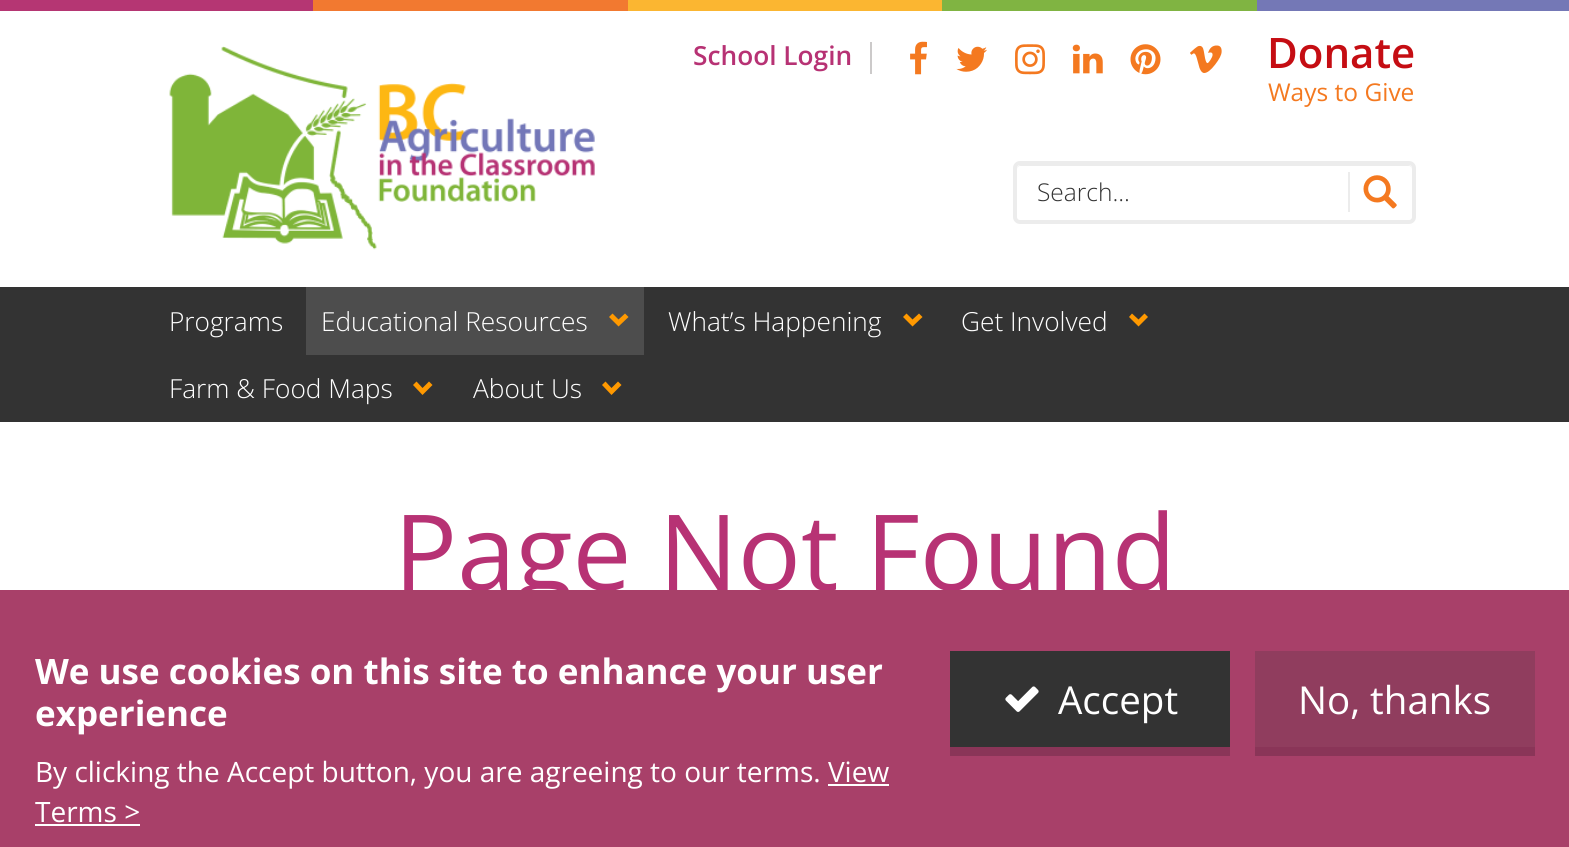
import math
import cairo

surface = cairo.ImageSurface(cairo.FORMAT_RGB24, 1569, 847)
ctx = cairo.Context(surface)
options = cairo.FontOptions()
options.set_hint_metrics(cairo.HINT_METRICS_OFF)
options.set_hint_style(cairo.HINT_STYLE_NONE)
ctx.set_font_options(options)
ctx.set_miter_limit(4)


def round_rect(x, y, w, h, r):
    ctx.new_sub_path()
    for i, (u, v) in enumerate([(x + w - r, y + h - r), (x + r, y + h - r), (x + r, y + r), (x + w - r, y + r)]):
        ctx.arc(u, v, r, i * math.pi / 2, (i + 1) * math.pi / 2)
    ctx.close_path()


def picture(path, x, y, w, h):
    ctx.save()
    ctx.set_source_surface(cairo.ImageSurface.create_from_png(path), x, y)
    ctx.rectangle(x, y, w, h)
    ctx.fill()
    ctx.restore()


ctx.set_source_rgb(1, 1, 1)
ctx.paint()
ctx.set_source_rgb(0.71, 0.212, 0.451)
ctx.rectangle(0, 0, 313, 11)
ctx.fill()
ctx.set_source_rgb(0.949, 0.475, 0.188)
ctx.rectangle(313, 0, 315, 11)
ctx.fill()
ctx.set_source_rgb(0.984, 0.714, 0.192)
ctx.rectangle(628, 0, 314, 11)
ctx.fill()
ctx.set_source_rgb(0.502, 0.706, 0.259)
ctx.rectangle(942, 0, 315, 11)
ctx.fill()
ctx.set_source_rgb(0.455, 0.471, 0.714)
ctx.rectangle(1257, 0, 312, 11)
ctx.fill()
picture("img1.png", 169, 46, 426, 204)
ctx.select_font_face("Open Sans SemiBold")
ctx.set_font_size(26.25)
ctx.set_source_rgb(0.718, 0.196, 0.455)
ctx.move_to(693, 65)
ctx.show_text("School Login")
ctx.set_source_rgb(0.8, 0.792, 0.792)
ctx.rectangle(870, 42, 2, 32)
ctx.fill()
picture("img2.png", 910, 41, 17, 34)
picture("img3.png", 956, 46, 31, 26)
picture("img4.png", 1015, 44, 30, 31)
picture("img5.png", 1072, 44, 31, 30)
picture("img6.png", 1130, 44, 31, 31)
picture("img7.png", 1190, 45, 32, 28)
ctx.set_font_size(42)
ctx.set_source_rgb(0.773, 0.051, 0.075)
ctx.move_to(1267, 68)
ctx.show_text("Donate")
ctx.select_font_face("Open Sans")
ctx.set_font_size(24.5)
ctx.set_source_rgb(0.957, 0.475, 0.125)
ctx.move_to(1268, 101)
ctx.show_text("Ways to Give")
ctx.set_source_rgb(0.925, 0.925, 0.925)
ctx.new_path()
ctx.move_to(1020, 166)
ctx.line_to(1409, 166)
ctx.curve_to(1411, 166, 1412, 168, 1412, 170)
ctx.curve_to(1412, 167, 1411, 165, 1408, 165)
ctx.line_to(1021, 165)
ctx.curve_to(1018, 165, 1017, 167, 1017, 170)
ctx.curve_to(1017, 168, 1018, 166, 1020, 166)
ctx.close_path()
ctx.fill()
round_rect(1015, 163, 399, 59, 5)
ctx.set_source_rgb(0.922, 0.922, 0.922)
ctx.set_line_width(4)
ctx.stroke()
ctx.select_font_face("Open Sans Light")
ctx.set_source_rgb(0.2, 0.2, 0.2)
ctx.move_to(1037, 201)
ctx.show_text("Search...")
ctx.set_source_rgb(0.922, 0.922, 0.922)
ctx.rectangle(1348, 172, 2, 40)
ctx.fill()
picture("img8.png", 1363, 175, 34, 34)
ctx.set_source_rgb(0.2, 0.2, 0.2)
ctx.rectangle(0, 287, 1569, 135)
ctx.fill()
ctx.set_font_size(26.25)
ctx.set_source_rgb(1, 1, 1)
ctx.move_to(169, 331)
ctx.show_text("Programs")
ctx.set_source_rgb(0.302, 0.302, 0.302)
ctx.rectangle(306, 287, 338, 68)
ctx.fill()
ctx.set_source_rgb(1, 1, 1)
ctx.move_to(321, 331)
ctx.show_text("Educational Resources")
ctx.set_source_rgb(1, 0.6, 0)
ctx.new_path()
ctx.move_to(628.5, 317)
ctx.line_to(618.5, 326.5)
ctx.line_to(609, 317)
ctx.line_to(612.5, 313.5)
ctx.line_to(618.5, 319.5)
ctx.line_to(625, 313.5)
ctx.close_path()
ctx.fill()
ctx.set_source_rgb(1, 1, 1)
ctx.move_to(668, 331)
ctx.show_text("What’s Happening")
ctx.set_source_rgb(1, 0.6, 0)
ctx.new_path()
ctx.move_to(922.5, 317)
ctx.line_to(912.5, 326.5)
ctx.line_to(903, 317)
ctx.line_to(906.5, 313.5)
ctx.line_to(912.5, 319.5)
ctx.line_to(919, 313.5)
ctx.close_path()
ctx.fill()
ctx.set_source_rgb(1, 1, 1)
ctx.move_to(961, 331)
ctx.show_text("Get Involved")
ctx.set_source_rgb(1, 0.6, 0)
ctx.new_path()
ctx.move_to(1148, 317)
ctx.line_to(1138.5, 326.5)
ctx.line_to(1129, 317)
ctx.line_to(1132, 313.5)
ctx.line_to(1138.5, 319.5)
ctx.line_to(1144.5, 313.5)
ctx.close_path()
ctx.fill()
ctx.set_source_rgb(1, 1, 1)
ctx.move_to(169, 398)
ctx.show_text("Farm & Food Maps")
ctx.set_source_rgb(1, 0.6, 0)
ctx.new_path()
ctx.move_to(432.5, 385)
ctx.line_to(422.5, 395)
ctx.line_to(413, 385)
ctx.line_to(416.5, 381.5)
ctx.line_to(422.5, 388)
ctx.line_to(429, 381.5)
ctx.close_path()
ctx.fill()
ctx.set_source_rgb(1, 1, 1)
ctx.move_to(473, 398)
ctx.show_text("About Us")
ctx.set_source_rgb(1, 0.6, 0)
ctx.new_path()
ctx.move_to(621.5, 385)
ctx.line_to(611.5, 395)
ctx.line_to(602, 385)
ctx.line_to(605.5, 381.5)
ctx.line_to(611.5, 388)
ctx.line_to(618, 381.5)
ctx.close_path()
ctx.fill()
ctx.select_font_face("Open Sans")
ctx.set_font_size(105)
ctx.set_source_rgb(0.718, 0.196, 0.455)
ctx.move_to(394, 590)
ctx.show_text("Page Not Found")
ctx.set_source_rgb(0.659, 0.251, 0.412)
ctx.rectangle(0, 590, 1569, 257)
ctx.fill()
ctx.select_font_face("Open Sans", cairo.FONT_SLANT_NORMAL, cairo.FONT_WEIGHT_BOLD)
ctx.set_font_size(35)
ctx.set_source_rgb(1, 1, 1)
ctx.move_to(35, 684)
ctx.show_text("We use cookies on this site to enhance your user")
ctx.move_to(35, 726)
ctx.show_text("experience")
ctx.select_font_face("Open Sans")
ctx.set_font_size(28)
ctx.move_to(35, 782)
ctx.show_text("By clicking the Accept button, you are agreeing to our terms. View")
ctx.move_to(35, 822)
ctx.show_text("Terms >")
ctx.rectangle(828, 784, 61, 2)
ctx.fill()
ctx.rectangle(35, 824, 105, 2)
ctx.fill()
ctx.set_source_rgb(0.2, 0.2, 0.2)
ctx.rectangle(950, 651, 280, 96)
ctx.fill()
ctx.set_source_rgb(0.541, 0.208, 0.345)
ctx.rectangle(950, 747, 280, 9)
ctx.fill()
picture("img9.png", 1005, 686, 34, 26)
ctx.set_font_size(38.5)
ctx.set_source_rgb(1, 1, 1)
ctx.move_to(1058, 714)
ctx.show_text("Accept")
ctx.set_source_rgb(0.565, 0.239, 0.369)
ctx.rectangle(1255, 651, 280, 96)
ctx.fill()
ctx.set_source_rgb(0.541, 0.208, 0.345)
ctx.rectangle(1255, 747, 280, 9)
ctx.fill()
ctx.set_source_rgb(1, 1, 1)
ctx.move_to(1298, 714)
ctx.show_text("No, thanks")
surface.write_to_png("page.png")
